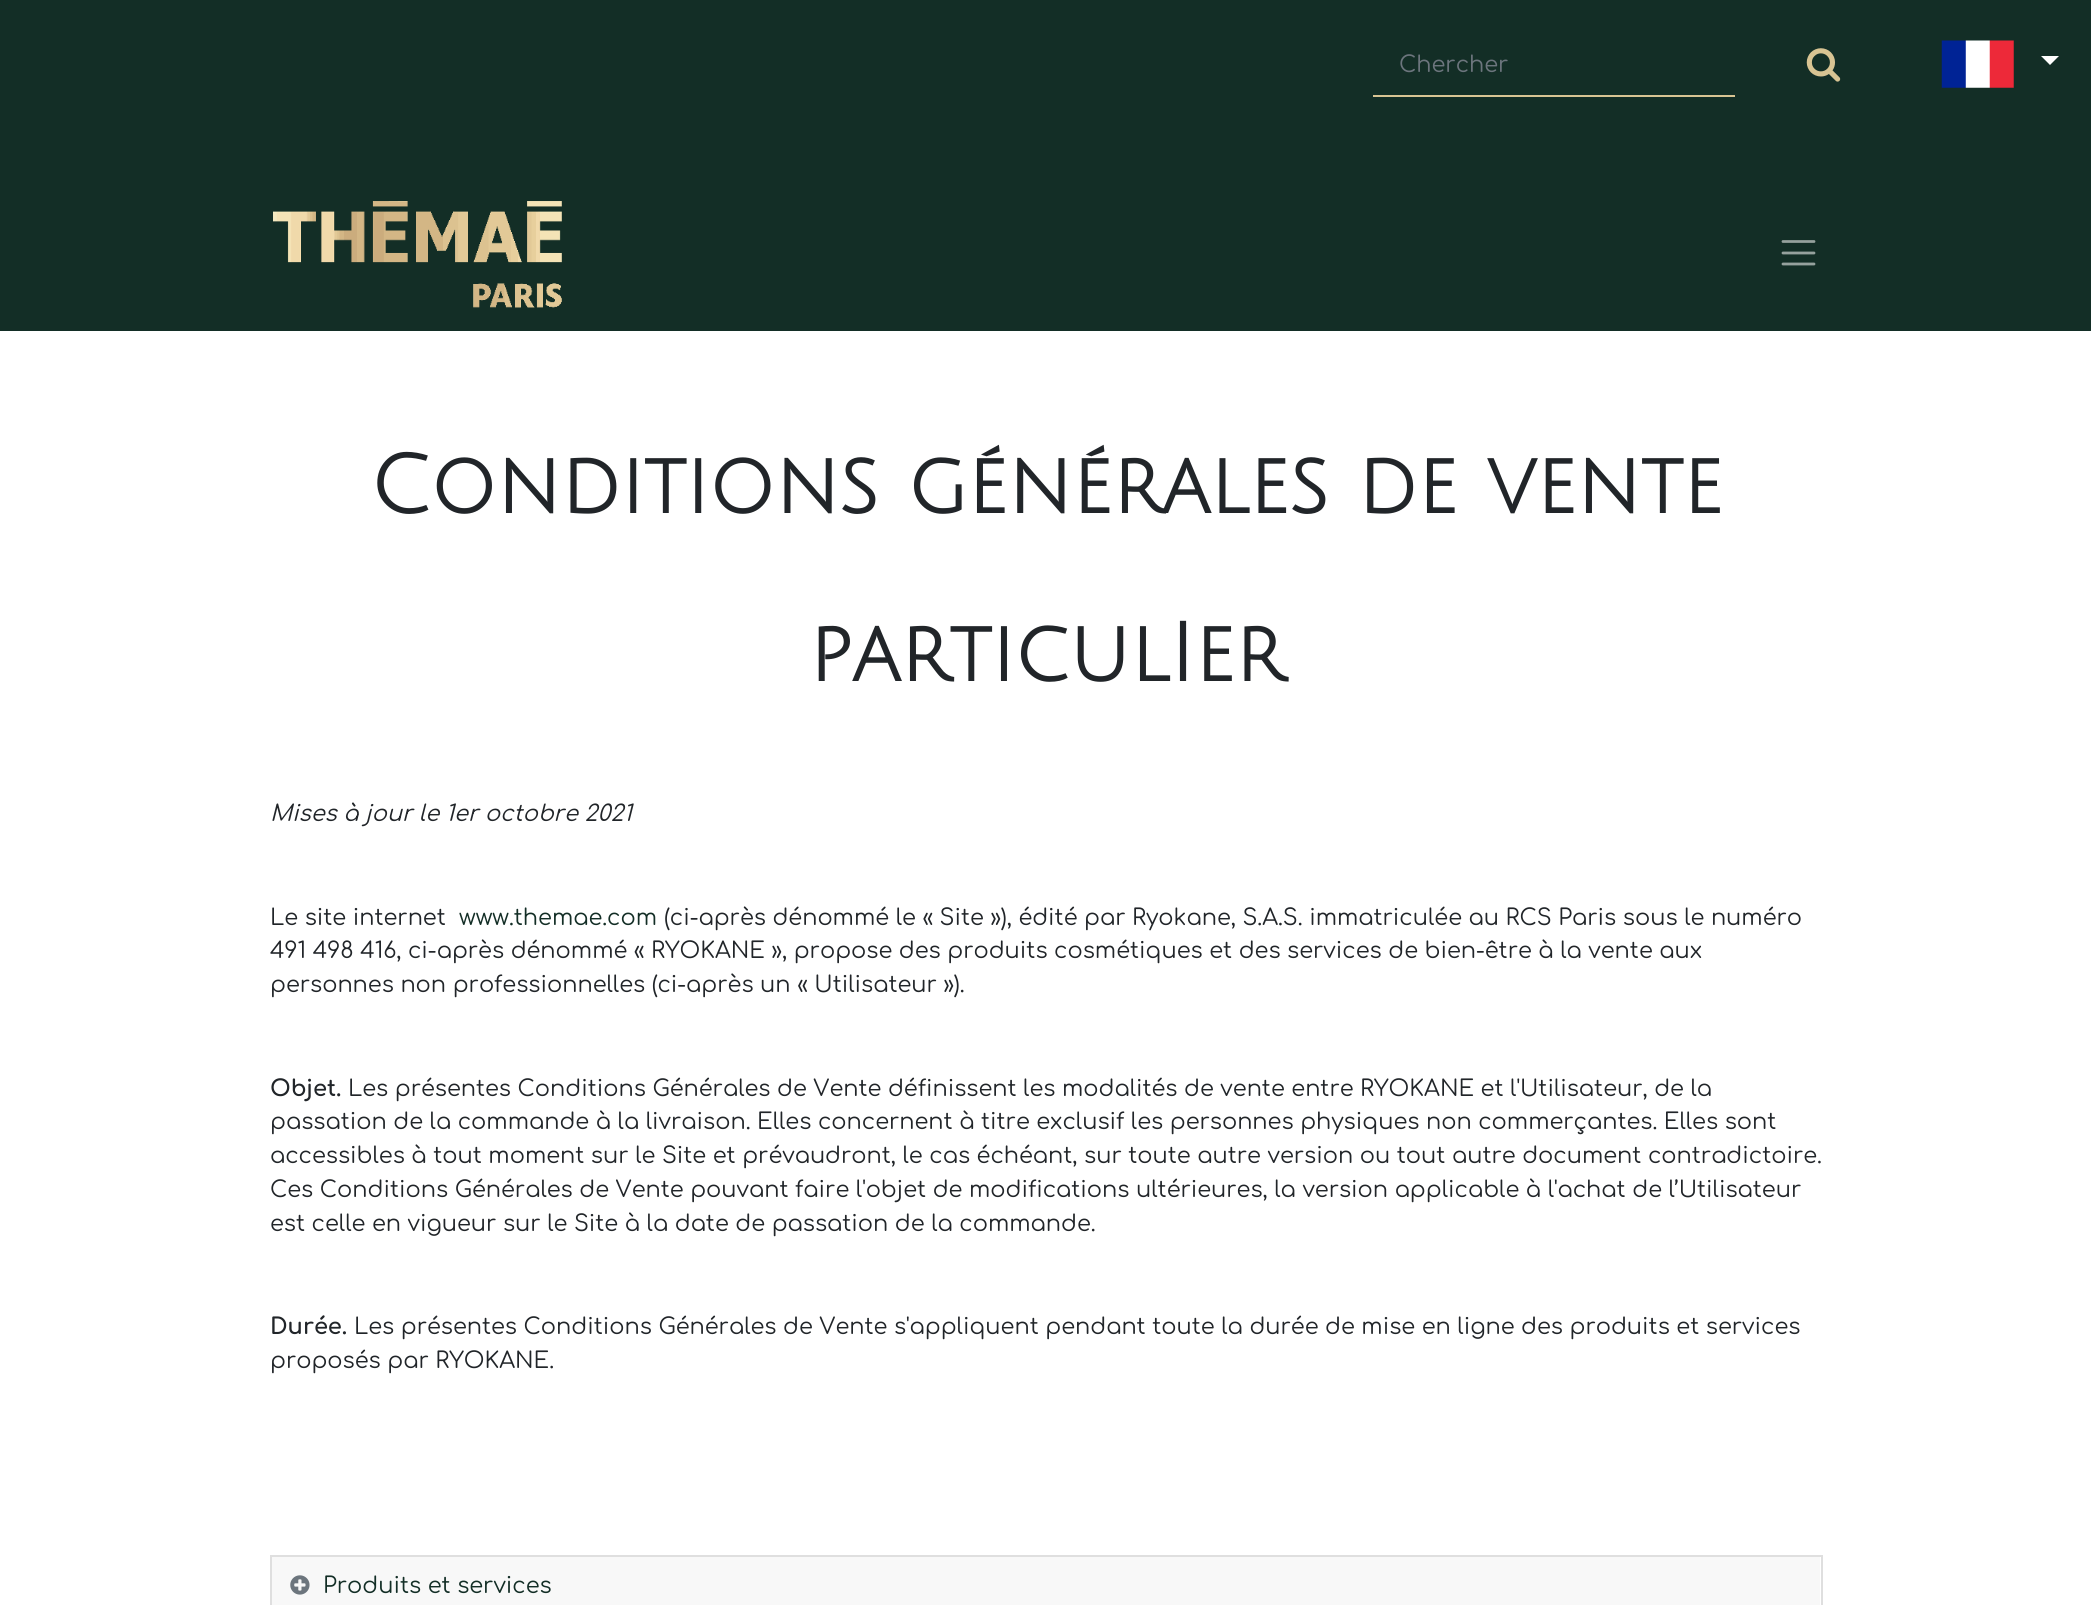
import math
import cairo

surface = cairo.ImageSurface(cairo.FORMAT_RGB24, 2091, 1605)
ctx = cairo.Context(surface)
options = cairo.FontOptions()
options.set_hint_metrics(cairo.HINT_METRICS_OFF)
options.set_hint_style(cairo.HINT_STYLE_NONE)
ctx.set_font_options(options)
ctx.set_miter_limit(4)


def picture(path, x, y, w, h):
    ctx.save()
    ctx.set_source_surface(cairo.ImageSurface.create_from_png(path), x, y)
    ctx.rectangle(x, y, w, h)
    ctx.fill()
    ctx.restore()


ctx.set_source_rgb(1, 1, 1)
ctx.paint()
ctx.set_source_rgb(0.078, 0.18, 0.149)
ctx.rectangle(0, 0, 2091, 331)
ctx.fill()
ctx.set_source_rgb(0.847, 0.769, 0.576)
ctx.rectangle(1373, 95, 362, 2)
ctx.fill()
ctx.select_font_face("Comfortaa")
ctx.set_font_size(22.5)
ctx.set_source_rgb(0.424, 0.459, 0.49)
ctx.move_to(1399, 72)
ctx.show_text("Chercher")
picture("img1.png", 1806, 48, 35, 34)
picture("img2.png", 1941, 40, 73, 48)
ctx.set_source_rgb(1, 1, 1)
ctx.new_path()
ctx.move_to(2041, 56)
ctx.line_to(2059, 56)
ctx.line_to(2050, 65)
ctx.close_path()
ctx.fill()
picture("img3.png", 273, 201, 289, 107)
ctx.new_path()
ctx.move_to(1783, 241.5)
ctx.line_to(1814, 241.5)
ctx.move_to(1783, 253)
ctx.line_to(1814, 253)
ctx.move_to(1783, 264)
ctx.line_to(1814, 264)
ctx.set_source_rgb(0.584, 0.631, 0.616)
ctx.set_line_width(2.8)
ctx.set_line_cap(cairo.LINE_CAP_ROUND)
ctx.stroke()
ctx.select_font_face("Julius Sans One", cairo.FONT_SLANT_NORMAL, cairo.FONT_WEIGHT_BOLD)
ctx.set_font_size(81)
ctx.set_source_rgb(0.129, 0.145, 0.161)
ctx.move_to(370, 513)
ctx.show_text("Conditions générales de vente")
ctx.move_to(809, 681)
ctx.show_text("particulIer")
ctx.select_font_face("Comfortaa", cairo.FONT_SLANT_ITALIC)
ctx.set_font_size(22.5)
ctx.move_to(270, 821)
ctx.show_text("Mises à jour le 1er octobre 2021")
ctx.select_font_face("Comfortaa")
ctx.move_to(270, 925)
ctx.show_text("Le site internet")
ctx.set_source_rgb(0.078, 0.18, 0.149)
ctx.move_to(459, 925)
ctx.show_text("www.themae.com")
ctx.set_source_rgb(0.129, 0.145, 0.161)
ctx.move_to(664, 925)
ctx.show_text("(ci-après dénommé le « Site »), édité par Ryokane, S.A.S. immatriculée au RCS Paris sous le numéro")
ctx.move_to(270, 958)
ctx.show_text("491 498 416, ci-après dénommé « RYOKANE », propose des produits cosmétiques et des services de bien-être à la vente aux")
ctx.move_to(270, 992)
ctx.show_text("personnes non professionnelles (ci-après un « Utilisateur »).")
ctx.select_font_face("Comfortaa", cairo.FONT_SLANT_NORMAL, cairo.FONT_WEIGHT_BOLD)
ctx.move_to(270, 1096)
ctx.show_text("Objet.")
ctx.select_font_face("Comfortaa")
ctx.move_to(348, 1096)
ctx.show_text("Les présentes Conditions Générales de Vente définissent les modalités de vente entre RYOKANE et l'Utilisateur, de la")
ctx.move_to(270, 1129)
ctx.show_text("passation de la commande à la livraison. Elles concernent à titre exclusif les personnes physiques non commerçantes. Elles sont")
ctx.move_to(270, 1163)
ctx.show_text("accessibles à tout moment sur le Site et prévaudront, le cas échéant, sur toute autre version ou tout autre document contradictoire.")
ctx.move_to(270, 1197)
ctx.show_text("Ces Conditions Générales de Vente pouvant faire l'objet de modifications ultérieures, la version applicable à l'achat de l’Utilisateur")
ctx.move_to(270, 1231)
ctx.show_text("est celle en vigueur sur le Site à la date de passation de la commande.")
ctx.select_font_face("Comfortaa", cairo.FONT_SLANT_NORMAL, cairo.FONT_WEIGHT_BOLD)
ctx.move_to(270, 1334)
ctx.show_text("Durée.")
ctx.select_font_face("Comfortaa")
ctx.move_to(354, 1334)
ctx.show_text("Les présentes Conditions Générales de Vente s'appliquent pendant toute la durée de mise en ligne des produits et services")
ctx.move_to(270, 1368)
ctx.show_text("proposés par RYOKANE.")
ctx.rectangle(271, 1556, 1551, 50)
ctx.set_source_rgb(0.875, 0.875, 0.875)
ctx.set_line_width(2)
ctx.set_line_cap(cairo.LINE_CAP_BUTT)
ctx.stroke()
ctx.set_source_rgb(0.969, 0.969, 0.969)
ctx.rectangle(272, 1557, 1548, 48)
ctx.fill()
picture("img4.png", 290, 1575, 20, 20)
ctx.set_source_rgb(0.078, 0.18, 0.149)
ctx.move_to(323, 1593)
ctx.show_text("Produits et services")
surface.write_to_png("page.png")
